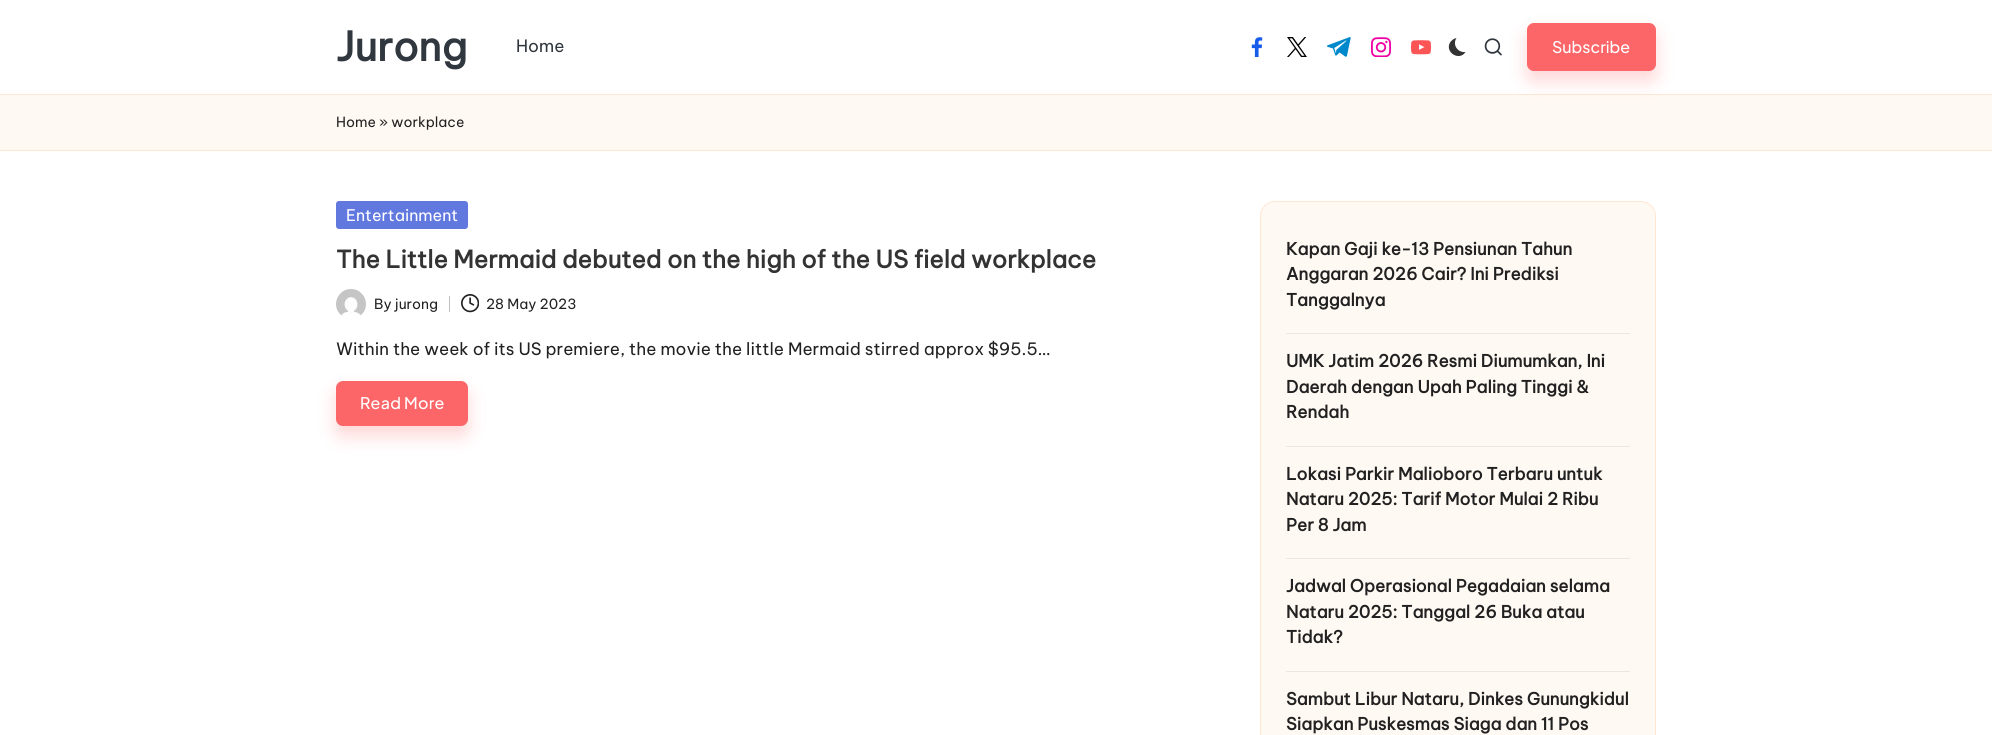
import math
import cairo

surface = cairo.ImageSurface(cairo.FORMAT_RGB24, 1992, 735)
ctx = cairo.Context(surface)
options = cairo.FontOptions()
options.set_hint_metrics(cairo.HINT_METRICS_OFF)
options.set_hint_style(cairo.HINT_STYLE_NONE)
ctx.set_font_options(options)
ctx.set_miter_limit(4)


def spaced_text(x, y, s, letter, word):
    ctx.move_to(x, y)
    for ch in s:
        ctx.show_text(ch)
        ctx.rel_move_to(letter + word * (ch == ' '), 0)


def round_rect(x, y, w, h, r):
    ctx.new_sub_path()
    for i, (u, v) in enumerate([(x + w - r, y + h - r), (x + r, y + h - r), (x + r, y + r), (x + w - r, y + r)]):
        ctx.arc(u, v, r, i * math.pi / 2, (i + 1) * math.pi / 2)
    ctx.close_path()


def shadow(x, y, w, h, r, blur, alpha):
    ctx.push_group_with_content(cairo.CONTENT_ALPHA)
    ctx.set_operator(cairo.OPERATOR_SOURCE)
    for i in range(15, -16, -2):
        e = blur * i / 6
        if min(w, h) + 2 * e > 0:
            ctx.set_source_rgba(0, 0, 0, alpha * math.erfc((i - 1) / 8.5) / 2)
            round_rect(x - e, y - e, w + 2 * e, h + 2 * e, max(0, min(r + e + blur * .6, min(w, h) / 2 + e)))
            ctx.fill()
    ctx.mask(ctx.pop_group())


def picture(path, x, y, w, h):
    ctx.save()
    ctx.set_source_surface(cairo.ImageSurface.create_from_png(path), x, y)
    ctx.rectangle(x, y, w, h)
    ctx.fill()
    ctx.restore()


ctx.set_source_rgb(1, 1, 1)
ctx.paint()
ctx.select_font_face("Be Vietnam Pro", cairo.FONT_SLANT_NORMAL, cairo.FONT_WEIGHT_BOLD)
ctx.set_font_size(40)
ctx.set_source_rgb(0.188, 0.216, 0.243)
ctx.move_to(336, 61)
ctx.show_text("Jurong")
ctx.select_font_face("Be Vietnam Pro")
ctx.set_font_size(17)
ctx.move_to(516, 52)
ctx.show_text("Home")
picture("img1.png", 1251, 37, 12, 20)
picture("img2.png", 1287, 37, 20, 20)
picture("img3.png", 1327, 37, 24, 20)
picture("img4.png", 1371, 37, 20, 20)
picture("img5.png", 1411, 40, 20, 15)
ctx.set_source_rgb(0.2, 0.2, 0.2)
ctx.new_path()
ctx.move_to(1465.5, 52)
ctx.curve_to(1458, 53, 1452, 45, 1456.5, 38)
ctx.curve_to(1453.5, 38.5, 1451.5, 40.5, 1450, 42.5)
ctx.curve_to(1444.5, 52.5, 1459.5, 61.5, 1465.5, 52)
ctx.close_path()
ctx.fill()
picture("img6.png", 1484, 38, 18, 18)
ctx.set_source_rgb(1, 0.976, 0.953)
ctx.rectangle(0, 95, 1992, 55)
ctx.fill()
ctx.set_source_rgb(1, 0.906, 0.824)
ctx.rectangle(0, 94, 1992, 1)
ctx.fill()
ctx.set_source_rgb(0.988, 0.4, 0.408)
shadow(1527, 33, 129, 48, 7, 9, 0.27)
ctx.set_source_rgb(0.988, 0.4, 0.408)
round_rect(1527.5, 23.5, 128, 47, 6.5)
ctx.fill_preserve()
ctx.set_line_width(1)
ctx.stroke()
ctx.select_font_face("Plus Jakarta Sans Medium")
ctx.set_font_size(16)
ctx.set_source_rgb(1, 1, 1)
ctx.move_to(1552, 53)
ctx.show_text("Subscribe")
ctx.set_source_rgb(1, 0.906, 0.824)
ctx.rectangle(0, 150, 1992, 1)
ctx.fill()
ctx.select_font_face("Be Vietnam Pro")
ctx.set_font_size(14)
ctx.set_source_rgb(0.129, 0.129, 0.129)
ctx.move_to(336, 127)
ctx.show_text("Home")
ctx.move_to(379, 127)
ctx.show_text("» workplace")
ctx.set_source_rgb(0.38, 0.471, 0.875)
round_rect(336, 201, 132, 28, 3)
ctx.fill()
ctx.set_font_size(16)
ctx.set_source_rgb(1, 1, 1)
ctx.move_to(346, 221)
ctx.show_text("Entertainment")
ctx.select_font_face("Be Vietnam Pro", cairo.FONT_SLANT_NORMAL, cairo.FONT_WEIGHT_BOLD)
ctx.set_font_size(24)
ctx.set_source_rgb(0.2, 0.2, 0.2)
ctx.move_to(336, 268)
ctx.show_text("The Little Mermaid debuted on the high of the US field workplace")
picture("img7.png", 336, 289, 30, 28)
ctx.select_font_face("Be Vietnam Pro")
ctx.set_font_size(14)
ctx.set_source_rgb(0.129, 0.129, 0.129)
ctx.move_to(374, 309)
ctx.show_text("By jurong")
ctx.set_source_rgb(0.749, 0.749, 0.749)
ctx.rectangle(449, 296, 1, 16)
ctx.fill()
picture("img8.png", 461, 294, 18, 19)
ctx.set_source_rgb(0.129, 0.129, 0.129)
ctx.move_to(486, 309)
ctx.show_text("28 May 2023")
ctx.set_font_size(17)
ctx.move_to(336, 355)
ctx.show_text("Within the week of its US premiere, the movie the little Mermaid stirred approx $95.5…")
ctx.set_source_rgb(0.988, 0.4, 0.408)
shadow(336, 391, 132, 45, 7, 9, 0.27)
ctx.set_source_rgb(0.988, 0.4, 0.408)
round_rect(336, 381, 132, 45, 7)
ctx.fill()
ctx.select_font_face("Plus Jakarta Sans Medium")
ctx.set_font_size(16)
ctx.set_source_rgb(1, 1, 1)
spaced_text(360, 409, "Read More", 0.25, 0)
ctx.set_source_rgb(1, 0.976, 0.953)
round_rect(1260.5, 201.5, 395, 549, 14.5)
ctx.fill_preserve()
ctx.set_source_rgb(1, 0.906, 0.824)
ctx.stroke()
ctx.select_font_face("Be Vietnam Pro", cairo.FONT_SLANT_NORMAL, cairo.FONT_WEIGHT_BOLD)
ctx.set_font_size(17)
ctx.set_source_rgb(0.129, 0.129, 0.129)
ctx.move_to(1286, 255)
ctx.show_text("Kapan Gaji ke-13 Pensiunan Tahun")
ctx.move_to(1286, 280)
ctx.show_text("Anggaran 2026 Cair? Ini Prediksi")
ctx.move_to(1286, 306)
ctx.show_text("Tanggalnya")
ctx.set_source_rgb(0.925, 0.906, 0.89)
ctx.rectangle(1286, 333, 344, 1)
ctx.fill()
ctx.set_source_rgb(0.129, 0.129, 0.129)
ctx.move_to(1286, 367)
ctx.show_text("UMK Jatim 2026 Resmi Diumumkan, Ini")
ctx.move_to(1286, 393)
ctx.show_text("Daerah dengan Upah Paling Tinggi &")
ctx.move_to(1286, 418)
ctx.show_text("Rendah")
ctx.set_source_rgb(0.925, 0.906, 0.89)
ctx.rectangle(1286, 446, 344, 1)
ctx.fill()
ctx.set_source_rgb(0.129, 0.129, 0.129)
ctx.move_to(1286, 480)
ctx.show_text("Lokasi Parkir Malioboro Terbaru untuk")
ctx.move_to(1286, 505)
ctx.show_text("Nataru 2025: Tarif Motor Mulai 2 Ribu")
ctx.move_to(1286, 531)
ctx.show_text("Per 8 Jam")
ctx.set_source_rgb(0.925, 0.906, 0.89)
ctx.rectangle(1286, 558, 344, 1)
ctx.fill()
ctx.set_source_rgb(0.129, 0.129, 0.129)
ctx.move_to(1286, 592)
ctx.show_text("Jadwal Operasional Pegadaian selama")
ctx.move_to(1286, 618)
ctx.show_text("Nataru 2025: Tanggal 26 Buka atau")
ctx.move_to(1286, 643)
ctx.show_text("Tidak?")
ctx.set_source_rgb(0.925, 0.906, 0.89)
ctx.rectangle(1286, 671, 344, 1)
ctx.fill()
ctx.set_source_rgb(0.129, 0.129, 0.129)
ctx.move_to(1286, 705)
ctx.show_text("Sambut Libur Nataru, Dinkes Gunungkidul")
ctx.move_to(1286, 730)
ctx.show_text("Siapkan Puskesmas Siaga dan 11 Pos")
surface.write_to_png("page.png")
